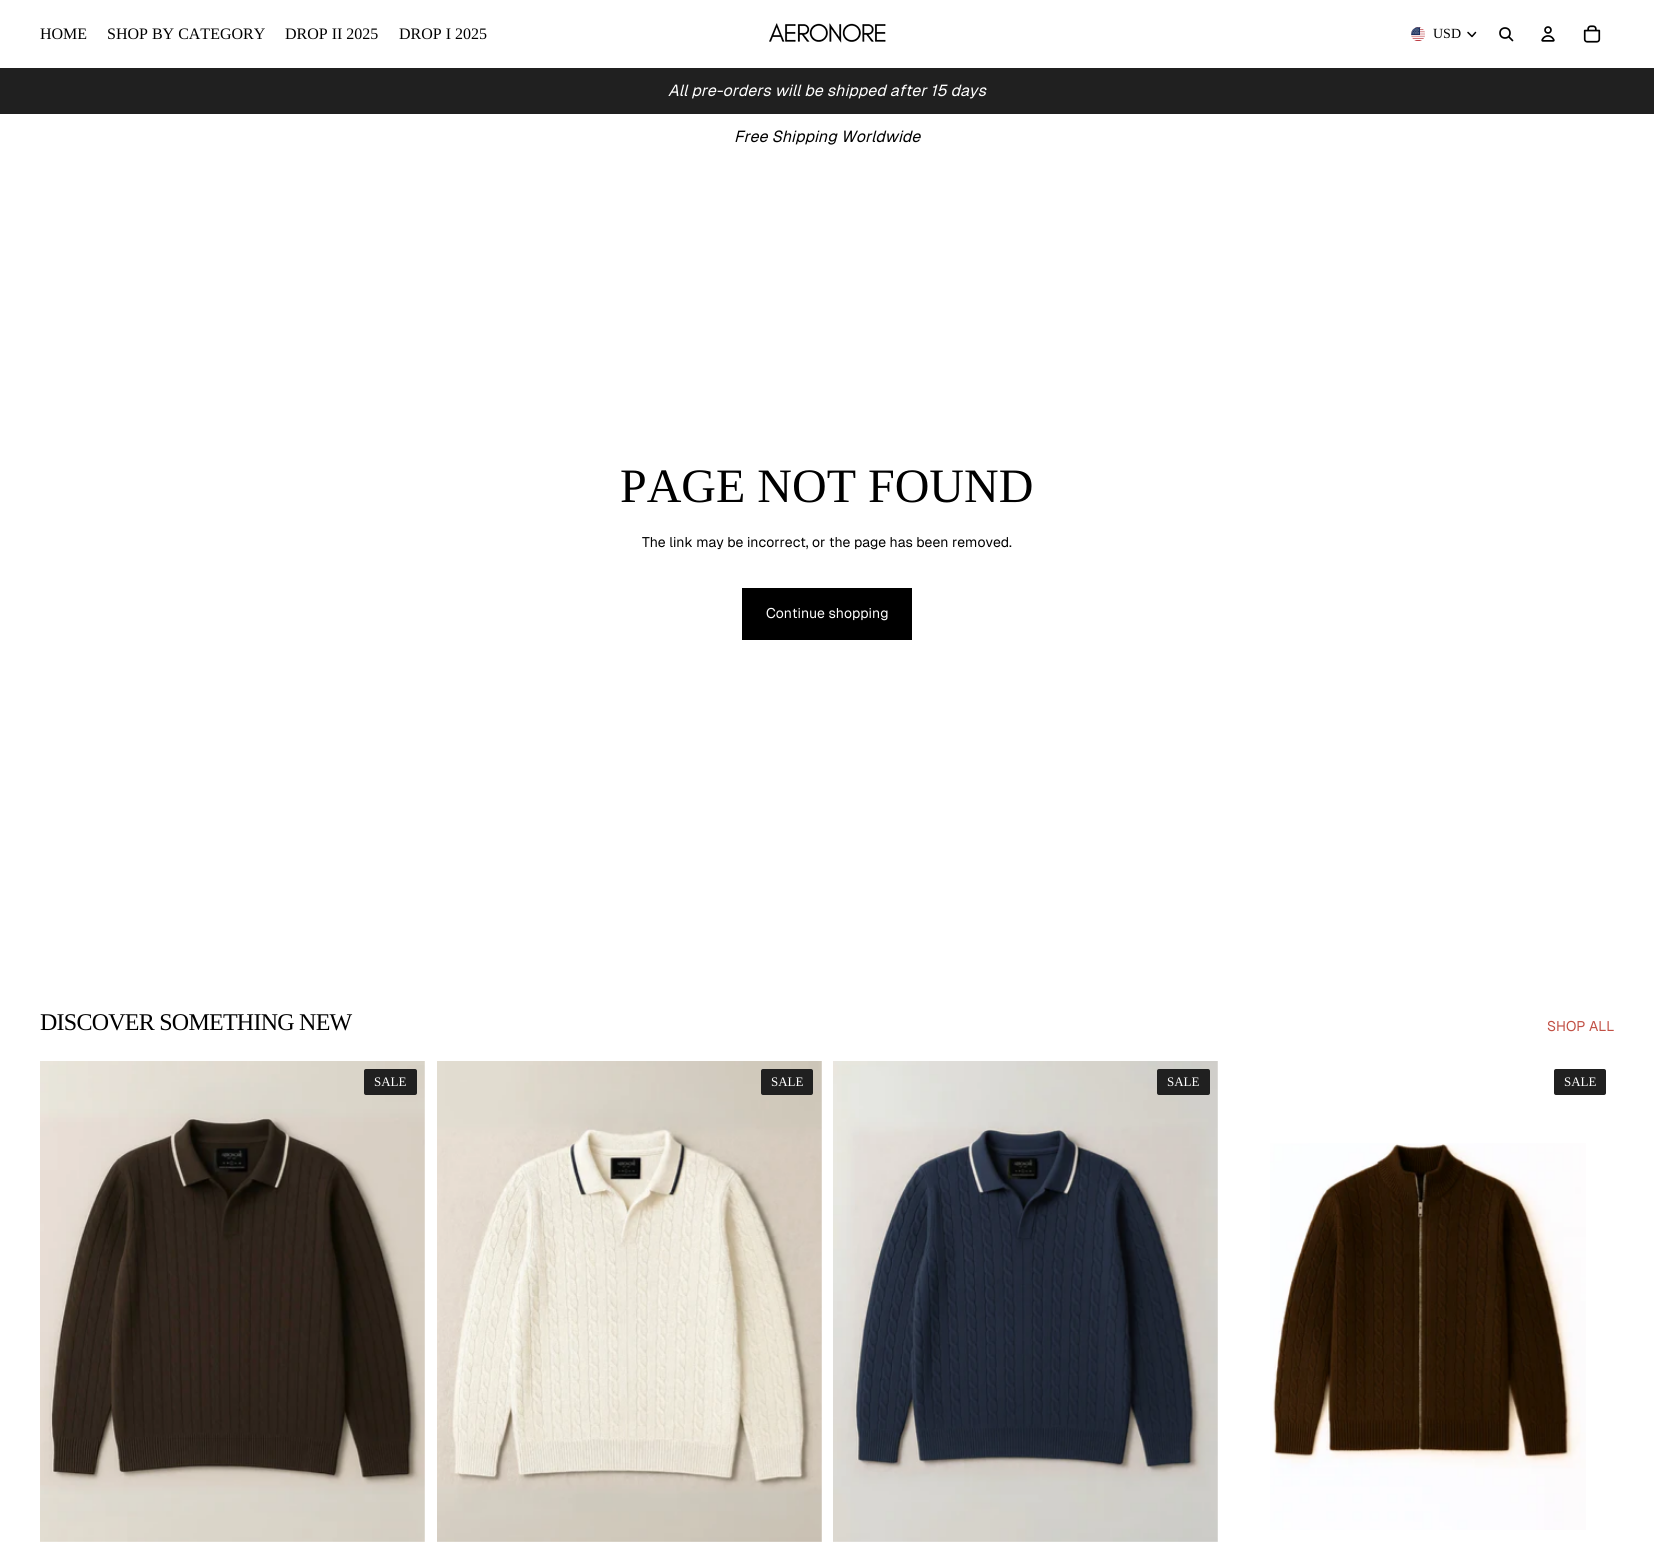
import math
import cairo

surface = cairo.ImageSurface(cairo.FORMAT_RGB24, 1654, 1558)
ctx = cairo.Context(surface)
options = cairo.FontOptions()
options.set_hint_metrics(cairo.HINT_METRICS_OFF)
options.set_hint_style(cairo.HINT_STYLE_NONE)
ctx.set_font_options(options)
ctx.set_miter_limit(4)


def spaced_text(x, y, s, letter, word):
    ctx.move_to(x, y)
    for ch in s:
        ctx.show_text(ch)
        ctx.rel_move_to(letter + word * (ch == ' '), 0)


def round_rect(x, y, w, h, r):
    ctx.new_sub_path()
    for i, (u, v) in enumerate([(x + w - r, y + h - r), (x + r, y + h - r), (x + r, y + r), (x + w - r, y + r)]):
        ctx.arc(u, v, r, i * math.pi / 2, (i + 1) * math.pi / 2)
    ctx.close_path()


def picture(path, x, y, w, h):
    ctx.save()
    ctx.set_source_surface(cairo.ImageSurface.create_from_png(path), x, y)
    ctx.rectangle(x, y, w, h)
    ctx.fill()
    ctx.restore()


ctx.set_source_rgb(1, 1, 1)
ctx.paint()
ctx.select_font_face("Liberation Serif")
ctx.set_font_size(16)
ctx.set_source_rgb(0, 0, 0)
ctx.move_to(40, 39)
ctx.show_text("HOME")
ctx.move_to(107, 39)
ctx.show_text("SHOP BY CATEGORY")
ctx.move_to(285, 39)
ctx.show_text("DROP II 2025")
ctx.move_to(399, 39)
ctx.show_text("DROP I 2025")
picture("img1.png", 769, 23, 117, 20)
picture("img2.png", 1411, 27, 14, 14)
ctx.set_font_size(14)
ctx.move_to(1433, 38)
ctx.show_text("USD")
ctx.new_path()
ctx.move_to(1475.5, 32.5)
ctx.line_to(1472, 36.5)
ctx.line_to(1468, 32.5)
ctx.set_line_width(1.5)
ctx.set_line_cap(cairo.LINE_CAP_ROUND)
ctx.set_line_join(cairo.LINE_JOIN_ROUND)
ctx.stroke()
ctx.arc(1505, 33, 5, 0, 2 * math.pi)
ctx.set_line_width(1.7)
ctx.set_line_cap(cairo.LINE_CAP_BUTT)
ctx.set_line_join(cairo.LINE_JOIN_MITER)
ctx.stroke()
ctx.new_path()
ctx.move_to(1509, 37)
ctx.line_to(1512.5, 40.5)
ctx.set_line_cap(cairo.LINE_CAP_ROUND)
ctx.set_line_join(cairo.LINE_JOIN_ROUND)
ctx.stroke()
picture("img3.png", 1541, 26, 14, 16)
picture("img4.png", 1583, 25, 18, 18)
ctx.set_source_rgb(0.125, 0.125, 0.125)
ctx.rectangle(0, 68, 1654, 46)
ctx.fill()
ctx.select_font_face("Geist", cairo.FONT_SLANT_ITALIC)
ctx.set_font_size(16)
ctx.set_source_rgb(1, 1, 1)
ctx.move_to(668, 96)
ctx.show_text("All pre-orders will be shipped after 15 days")
ctx.set_source_rgb(0, 0, 0)
ctx.move_to(734, 142)
ctx.show_text("Free Shipping Worldwide")
ctx.select_font_face("Liberation Serif")
ctx.set_font_size(48)
ctx.move_to(620, 502)
ctx.show_text("PAGE NOT FOUND")
ctx.select_font_face("Geist")
ctx.set_font_size(14)
ctx.move_to(642, 547)
ctx.show_text("The link may be incorrect, or the page has been removed.")
ctx.rectangle(742, 588, 170, 52)
ctx.fill()
ctx.set_source_rgb(1, 1, 1)
ctx.move_to(766, 618)
ctx.show_text("Continue shopping")
ctx.select_font_face("Liberation Serif")
ctx.set_font_size(24)
ctx.set_source_rgb(0, 0, 0)
spaced_text(40, 1030, "DISCOVER SOMETHING NEW", -0.75, 0)
ctx.select_font_face("Geist")
ctx.set_font_size(14)
ctx.set_source_rgb(0.757, 0.314, 0.271)
ctx.move_to(1547, 1031)
ctx.show_text("SHOP ALL")
picture("img5.png", 40, 1061, 385, 481)
ctx.set_source_rgb(0.125, 0.125, 0.125)
round_rect(364, 1069, 53, 26, 2)
ctx.fill()
ctx.select_font_face("Liberation Serif")
ctx.set_font_size(13)
ctx.set_source_rgb(1, 1, 1)
ctx.move_to(374, 1086)
ctx.show_text("SALE")
picture("img6.png", 437, 1061, 385, 481)
ctx.set_source_rgb(0.125, 0.125, 0.125)
round_rect(761, 1069, 52, 26, 2)
ctx.fill()
ctx.set_source_rgb(1, 1, 1)
ctx.move_to(771, 1086)
ctx.show_text("SALE")
picture("img7.png", 833, 1061, 385, 481)
ctx.set_source_rgb(0.125, 0.125, 0.125)
round_rect(1157, 1069, 53, 26, 2)
ctx.fill()
ctx.set_source_rgb(1, 1, 1)
ctx.move_to(1167, 1086)
ctx.show_text("SALE")
ctx.set_source_rgb(0.125, 0.125, 0.125)
round_rect(1554, 1069, 52, 26, 2)
ctx.fill()
ctx.set_source_rgb(1, 1, 1)
ctx.move_to(1564, 1086)
ctx.show_text("SALE")
picture("img8.png", 1270, 1143, 316, 387)
surface.write_to_png("page.png")
